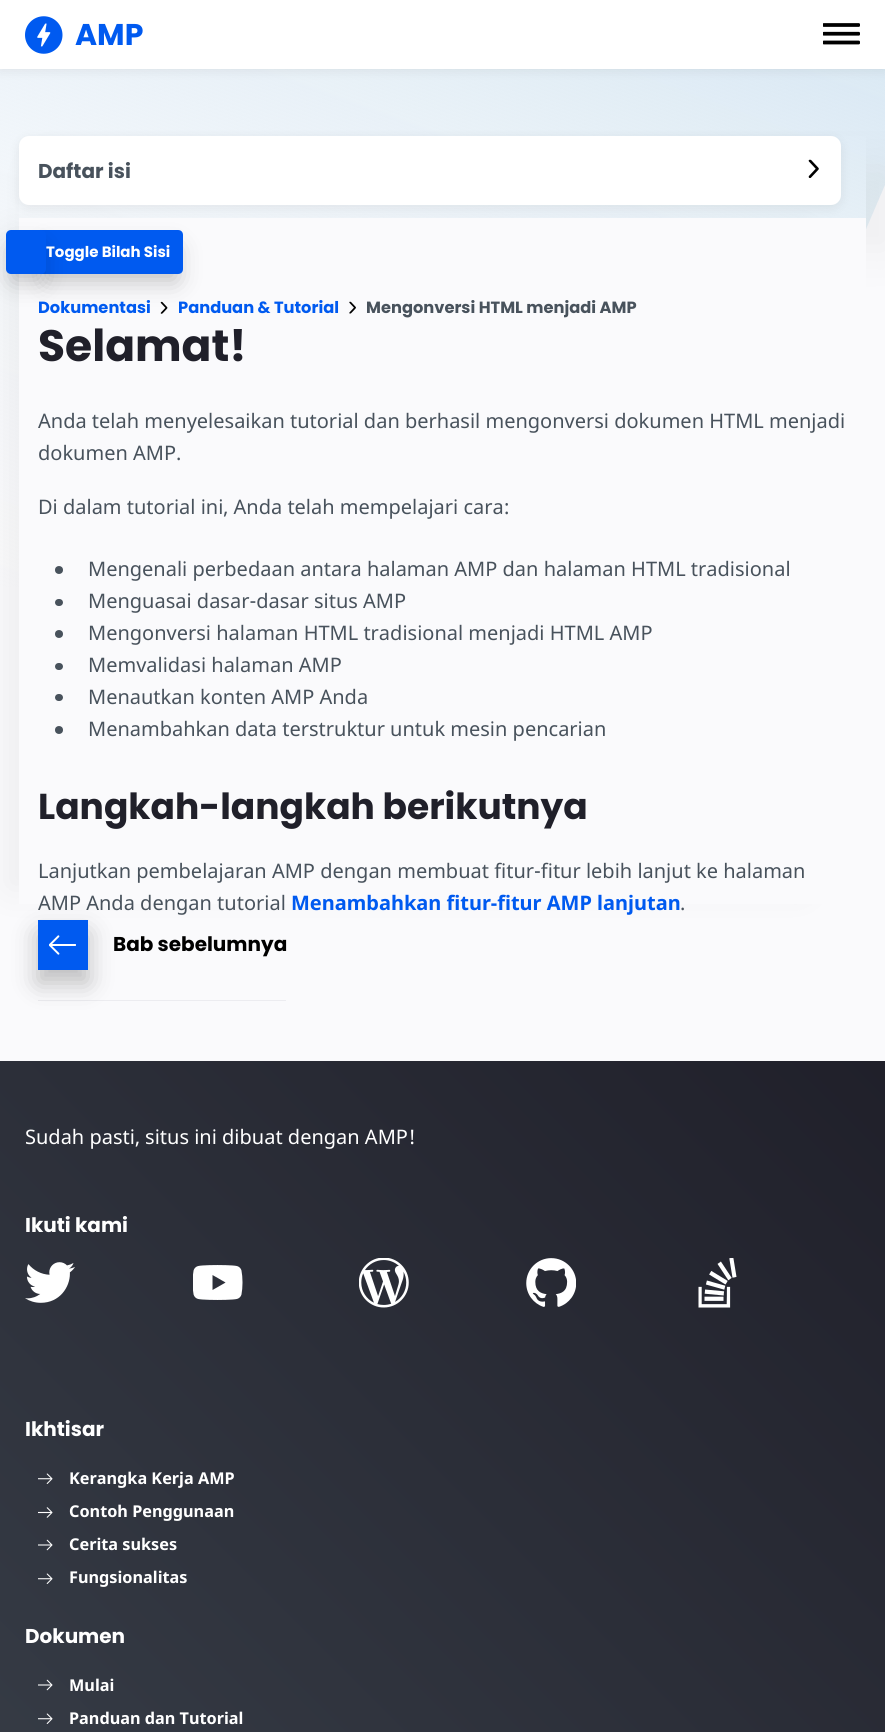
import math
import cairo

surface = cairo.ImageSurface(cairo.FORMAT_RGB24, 885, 1732)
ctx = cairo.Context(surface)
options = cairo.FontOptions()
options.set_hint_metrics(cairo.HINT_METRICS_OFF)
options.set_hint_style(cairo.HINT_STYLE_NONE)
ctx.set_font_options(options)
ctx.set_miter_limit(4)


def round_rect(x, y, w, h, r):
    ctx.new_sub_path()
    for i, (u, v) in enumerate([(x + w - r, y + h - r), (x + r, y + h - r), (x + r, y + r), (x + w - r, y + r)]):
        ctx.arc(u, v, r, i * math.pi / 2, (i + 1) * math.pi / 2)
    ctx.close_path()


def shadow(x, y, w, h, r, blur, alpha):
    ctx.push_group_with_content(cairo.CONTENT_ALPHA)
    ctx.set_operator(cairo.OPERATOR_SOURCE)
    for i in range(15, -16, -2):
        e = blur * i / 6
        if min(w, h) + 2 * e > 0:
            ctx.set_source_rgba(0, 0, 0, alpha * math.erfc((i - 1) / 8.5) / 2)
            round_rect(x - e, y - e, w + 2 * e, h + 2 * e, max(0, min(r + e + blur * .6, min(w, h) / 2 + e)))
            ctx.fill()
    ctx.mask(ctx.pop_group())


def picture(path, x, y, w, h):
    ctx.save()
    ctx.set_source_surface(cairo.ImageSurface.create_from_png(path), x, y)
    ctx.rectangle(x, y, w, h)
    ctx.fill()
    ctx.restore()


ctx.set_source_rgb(0.98, 0.98, 0.988)
ctx.paint()
picture("img1.png", 0, 69, 885, 518)
ctx.set_source_rgb(0, 0, 0)
shadow(0, 3, 885, 68, 0, 6, 0.07)
ctx.set_source_rgb(1, 1, 1)
ctx.rectangle(0, 0, 885, 69)
ctx.fill()
picture("img2.png", 25, 16, 38, 38)
ctx.select_font_face("Poppins", cairo.FONT_SLANT_NORMAL, cairo.FONT_WEIGHT_BOLD)
ctx.set_font_size(30)
ctx.set_source_rgb(0, 0.353, 0.941)
ctx.move_to(75, 45)
ctx.show_text("AMP")
picture("img3.png", 823, 23, 37, 22)
ctx.save()
ctx.set_fill_rule(cairo.FILL_RULE_EVEN_ODD)
ctx.new_path()
ctx.move_to(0, 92)
ctx.line_to(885, 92)
ctx.line_to(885, 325)
ctx.line_to(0, 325)
ctx.close_path()
ctx.move_to(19, 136)
ctx.line_to(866, 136)
ctx.line_to(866, 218)
ctx.line_to(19, 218)
ctx.close_path()
ctx.clip()
ctx.set_source_rgb(0, 0, 0)
shadow(44, 168, 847, 81, 0, 25, 0.05)
ctx.restore()
ctx.set_source_rgb(0, 0, 0)
shadow(6, 236, 798, 653, 0, 19, 0.05)
ctx.set_source_rgb(0.98, 0.98, 0.988)
ctx.rectangle(19, 218, 847, 686)
ctx.fill()
ctx.set_source_rgb(0, 0, 0)
shadow(19, 139, 822, 69, 10, 6, 0.07)
ctx.set_source_rgb(1, 1, 1)
round_rect(19, 136, 822, 69, 10)
ctx.fill()
ctx.set_font_size(20)
ctx.set_source_rgb(0.282, 0.322, 0.361)
ctx.move_to(38, 178)
ctx.show_text("Daftar isi")
picture("img4.png", 808, 159, 11, 19)
picture("img5.png", 160, 301, 8, 13)
ctx.set_source_rgb(0, 0, 0)
shadow(46, 249, 130, 31, 0, 12.5, 0.25)
ctx.set_source_rgb(0, 0.353, 0.941)
ctx.new_path()
ctx.move_to(40, 230)
ctx.line_to(178, 230)
ctx.curve_to(181, 230, 183, 232, 183, 235)
ctx.line_to(183, 269)
ctx.curve_to(183, 272, 181, 274, 178, 274)
ctx.line_to(40, 274)
ctx.close_path()
ctx.fill()
ctx.set_source_rgb(0, 0, 0)
shadow(13, 249, 27, 31, 0, 12.5, 0.25)
ctx.set_source_rgb(0, 0.353, 0.941)
round_rect(6, 230, 40, 44, 5)
ctx.fill()
ctx.set_font_size(15)
ctx.set_source_rgb(1, 1, 1)
ctx.move_to(46, 257)
ctx.show_text("Toggle Bilah Sisi")
ctx.set_font_size(16.25)
ctx.set_source_rgb(0, 0.353, 0.941)
ctx.move_to(38, 313)
ctx.show_text("Dokumentasi")
ctx.move_to(178, 313)
ctx.show_text("Panduan & Tutorial")
picture("img6.png", 349, 301, 7, 13)
ctx.set_source_rgb(0.282, 0.322, 0.361)
ctx.move_to(366, 313)
ctx.show_text("Mengonversi HTML menjadi AMP")
ctx.set_font_size(44)
ctx.set_source_rgb(0.125, 0.125, 0.165)
ctx.move_to(38, 361)
ctx.show_text("Selamat!")
ctx.select_font_face("Noto Sans")
ctx.set_font_size(20)
ctx.set_source_rgb(0.282, 0.322, 0.361)
ctx.move_to(38, 428)
ctx.show_text("Anda telah menyelesaikan tutorial dan berhasil mengonversi dokumen HTML menjadi")
ctx.move_to(38, 460)
ctx.show_text("dokumen AMP.")
ctx.move_to(38, 514)
ctx.show_text("Di dalam tutorial ini, Anda telah mempelajari cara:")
ctx.new_path()
ctx.arc(59, 570, 4, 0, 2 * math.pi)
ctx.fill()
ctx.move_to(88, 576)
ctx.show_text("Mengenali perbedaan antara halaman AMP dan halaman HTML tradisional")
round_rect(55, 599, 8, 7, 3.5)
ctx.fill()
ctx.move_to(88, 608)
ctx.show_text("Menguasai dasar-dasar situs AMP")
ctx.new_path()
ctx.arc(59, 634, 4, 0, 2 * math.pi)
ctx.fill()
ctx.move_to(88, 640)
ctx.show_text("Mengonversi halaman HTML tradisional menjadi HTML AMP")
round_rect(55, 663, 8, 7, 3.5)
ctx.fill()
ctx.move_to(88, 672)
ctx.show_text("Memvalidasi halaman AMP")
round_rect(55, 694, 8, 7, 3.5)
ctx.fill()
ctx.move_to(88, 704)
ctx.show_text("Menautkan konten AMP Anda")
ctx.new_path()
ctx.arc(59, 730, 4, 0, 2 * math.pi)
ctx.fill()
ctx.move_to(88, 736)
ctx.show_text("Menambahkan data terstruktur untuk mesin pencarian")
ctx.select_font_face("Poppins", cairo.FONT_SLANT_NORMAL, cairo.FONT_WEIGHT_BOLD)
ctx.set_font_size(36)
ctx.set_source_rgb(0.125, 0.125, 0.165)
ctx.move_to(38, 819)
ctx.show_text("Langkah-langkah berikutnya")
ctx.select_font_face("Noto Sans")
ctx.set_font_size(20)
ctx.set_source_rgb(0.282, 0.322, 0.361)
ctx.move_to(38, 878)
ctx.show_text("Lanjutkan pembelajaran AMP dengan membuat fitur-fitur lebih lanjut ke halaman")
ctx.move_to(38, 910)
ctx.show_text("AMP Anda dengan tutorial")
ctx.select_font_face("Noto Sans", cairo.FONT_SLANT_NORMAL, cairo.FONT_WEIGHT_BOLD)
ctx.set_source_rgb(0, 0.353, 0.941)
ctx.move_to(291, 910)
ctx.show_text("Menambahkan fitur-fitur AMP lanjutan")
ctx.select_font_face("Noto Sans")
ctx.set_source_rgb(0.282, 0.322, 0.361)
ctx.move_to(680, 910)
ctx.show_text(".")
ctx.set_source_rgb(0.922, 0.922, 0.941)
ctx.rectangle(38, 1000, 248, 1)
ctx.fill()
ctx.set_source_rgb(0, 0, 0)
shadow(38, 933, 50, 50, 0, 12.5, 0.25)
ctx.set_source_rgb(0, 0.353, 0.941)
ctx.rectangle(38, 920, 50, 50)
ctx.fill()
picture("img7.png", 49, 935, 27, 20)
ctx.select_font_face("Poppins", cairo.FONT_SLANT_NORMAL, cairo.FONT_WEIGHT_BOLD)
ctx.set_source_rgb(0, 0, 0)
ctx.move_to(113, 951)
ctx.show_text("Bab sebelumnya")
gradient = cairo.LinearGradient(-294, 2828, 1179, 1355)
gradient.add_color_stop_rgba(0, 0.282, 0.322, 0.361, 1)
gradient.add_color_stop_rgba(1, 0.125, 0.125, 0.165, 1)
ctx.set_source(gradient)
ctx.rectangle(0, 1061, 885, 671)
ctx.fill()
ctx.select_font_face("Noto Sans")
ctx.set_source_rgb(1, 1, 1)
ctx.move_to(25, 1144)
ctx.show_text("Sudah pasti, situs ini dibuat dengan AMP!")
ctx.select_font_face("Poppins", cairo.FONT_SLANT_NORMAL, cairo.FONT_WEIGHT_BOLD)
ctx.move_to(25, 1232)
ctx.show_text("Ikuti kami")
picture("img8.png", 25, 1262, 50, 41)
picture("img9.png", 193, 1265, 50, 35)
picture("img10.png", 359, 1258, 50, 50)
picture("img11.png", 526, 1258, 50, 49)
picture("img12.png", 698, 1258, 39, 50)
ctx.move_to(25, 1436)
ctx.show_text("Ikhtisar")
picture("img13.png", 38, 1473, 15, 11)
ctx.select_font_face("Noto Sans", cairo.FONT_SLANT_NORMAL, cairo.FONT_WEIGHT_BOLD)
ctx.set_font_size(16.25)
ctx.move_to(69, 1484)
ctx.show_text("Kerangka Kerja AMP")
picture("img14.png", 38, 1507, 15, 11)
ctx.move_to(69, 1517)
ctx.show_text("Contoh Penggunaan")
picture("img15.png", 38, 1539, 15, 12)
ctx.move_to(69, 1550)
ctx.show_text("Cerita sukses")
picture("img16.png", 38, 1573, 15, 11)
ctx.move_to(69, 1583)
ctx.show_text("Fungsionalitas")
ctx.select_font_face("Poppins", cairo.FONT_SLANT_NORMAL, cairo.FONT_WEIGHT_BOLD)
ctx.set_font_size(20)
ctx.move_to(25, 1643)
ctx.show_text("Dokumen")
picture("img17.png", 38, 1679, 15, 12)
ctx.select_font_face("Noto Sans", cairo.FONT_SLANT_NORMAL, cairo.FONT_WEIGHT_BOLD)
ctx.set_font_size(16.25)
ctx.move_to(69, 1691)
ctx.show_text("Mulai")
picture("img18.png", 38, 1713, 15, 11)
ctx.move_to(69, 1724)
ctx.show_text("Panduan dan Tutorial")
surface.write_to_png("page.png")
